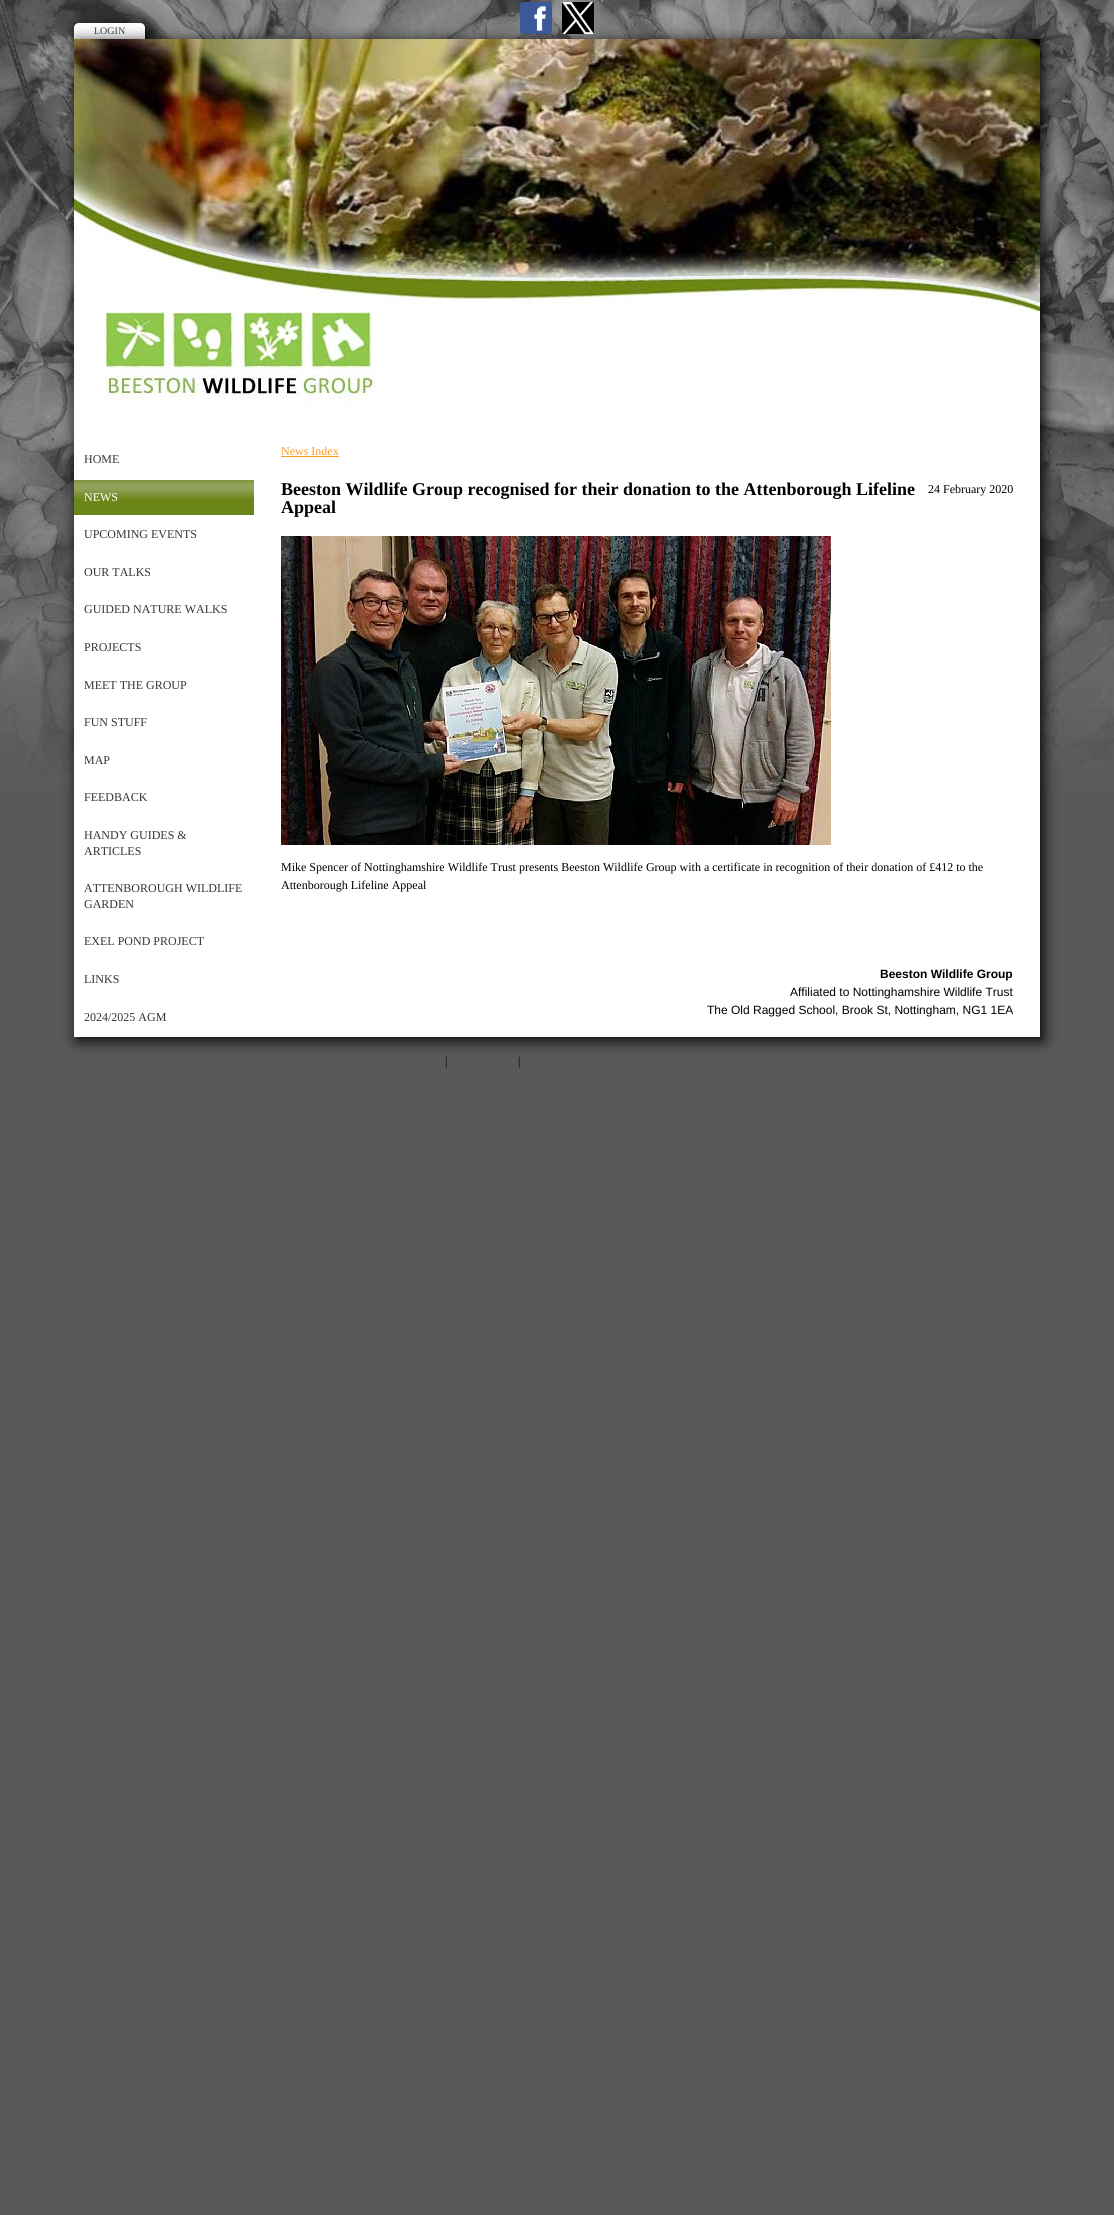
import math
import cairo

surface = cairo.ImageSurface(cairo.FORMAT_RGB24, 1114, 2215)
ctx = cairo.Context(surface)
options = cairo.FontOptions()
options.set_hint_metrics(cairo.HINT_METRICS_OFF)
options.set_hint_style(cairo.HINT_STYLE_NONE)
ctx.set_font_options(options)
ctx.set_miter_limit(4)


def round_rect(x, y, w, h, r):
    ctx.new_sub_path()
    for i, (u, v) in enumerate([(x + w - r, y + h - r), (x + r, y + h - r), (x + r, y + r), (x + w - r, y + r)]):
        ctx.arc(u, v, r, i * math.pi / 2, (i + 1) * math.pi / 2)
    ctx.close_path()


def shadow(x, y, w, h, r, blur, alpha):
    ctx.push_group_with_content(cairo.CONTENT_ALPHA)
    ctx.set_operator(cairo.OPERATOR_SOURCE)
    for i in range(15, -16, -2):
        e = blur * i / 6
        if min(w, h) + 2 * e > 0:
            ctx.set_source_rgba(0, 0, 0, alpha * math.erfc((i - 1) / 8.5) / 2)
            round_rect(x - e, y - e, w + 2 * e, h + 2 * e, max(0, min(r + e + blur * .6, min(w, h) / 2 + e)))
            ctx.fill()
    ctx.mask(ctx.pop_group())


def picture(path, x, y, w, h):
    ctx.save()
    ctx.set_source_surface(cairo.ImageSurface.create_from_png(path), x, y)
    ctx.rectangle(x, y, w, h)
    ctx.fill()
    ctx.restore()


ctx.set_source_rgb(0.349, 0.349, 0.349)
ctx.paint()
picture("img1.png", 0, 0, 1114, 787)
ctx.set_source_rgb(0, 0, 0)
shadow(77, 26, 71, 16, 5, 7.5, 1)
ctx.set_source_rgb(1, 1, 1)
ctx.new_path()
ctx.move_to(79, 23)
ctx.line_to(140, 23)
ctx.curve_to(143, 23, 145, 25, 145, 28)
ctx.line_to(145, 39)
ctx.line_to(74, 39)
ctx.line_to(74, 28)
ctx.curve_to(74, 25, 76, 23, 79, 23)
ctx.close_path()
ctx.fill()
ctx.select_font_face("Liberation Serif")
ctx.set_font_size(10)
ctx.set_source_rgb(0.267, 0.267, 0.267)
ctx.move_to(94, 34)
ctx.show_text("LOGIN")
ctx.set_source_rgb(0, 0, 0)
shadow(77, 42, 966, 998, 0, 7.5, 1)
ctx.set_source_rgb(1, 1, 1)
ctx.rectangle(74, 407, 966, 630)
ctx.fill()
picture("img2.png", 520, 2, 32, 32)
picture("img3.png", 562, 2, 32, 32)
picture("img4.png", 74, 39, 966, 368)
ctx.set_font_size(12)
ctx.set_source_rgb(0.208, 0.208, 0.208)
ctx.move_to(84, 463)
ctx.show_text("HOME")
ctx.set_source_rgb(0.424, 0.522, 0.098)
ctx.rectangle(74, 480, 180, 35)
ctx.fill()
picture("img5.png", 74, 480, 180, 19)
ctx.set_source_rgb(1, 1, 1)
ctx.move_to(84, 501)
ctx.show_text("NEWS")
ctx.set_source_rgb(0.208, 0.208, 0.208)
ctx.move_to(84, 538)
ctx.show_text("UPCOMING EVENTS")
ctx.move_to(84, 576)
ctx.show_text("OUR TALKS")
ctx.move_to(84, 613)
ctx.show_text("GUIDED NATURE WALKS")
ctx.move_to(84, 651)
ctx.show_text("PROJECTS")
ctx.move_to(84, 689)
ctx.show_text("MEET THE GROUP")
ctx.move_to(84, 726)
ctx.show_text("FUN STUFF")
ctx.move_to(84, 764)
ctx.show_text("MAP")
ctx.move_to(84, 801)
ctx.show_text("FEEDBACK")
ctx.move_to(84, 839)
ctx.show_text("HANDY GUIDES &")
ctx.move_to(84, 855)
ctx.show_text("ARTICLES")
ctx.move_to(84, 892)
ctx.show_text("ATTENBOROUGH WILDLIFE")
ctx.move_to(84, 908)
ctx.show_text("GARDEN")
ctx.move_to(84, 945)
ctx.show_text("EXEL POND PROJECT")
ctx.move_to(84, 983)
ctx.show_text("LINKS")
ctx.move_to(84, 1021)
ctx.show_text("2024/2025 AGM")
ctx.set_source_rgb(1, 0.6, 0.133)
ctx.move_to(281, 455)
ctx.show_text("News Index")
ctx.rectangle(281, 456, 58, 1)
ctx.fill()
ctx.select_font_face("Liberation Serif", cairo.FONT_SLANT_NORMAL, cairo.FONT_WEIGHT_BOLD)
ctx.set_font_size(18)
ctx.set_source_rgb(0, 0, 0)
ctx.move_to(281, 495)
ctx.show_text("Beeston Wildlife Group recognised for their donation to the Attenborough Lifeline")
ctx.move_to(281, 513)
ctx.show_text("Appeal")
ctx.select_font_face("Liberation Serif")
ctx.set_font_size(12)
ctx.move_to(928, 493)
ctx.show_text("24 February 2020")
picture("img6.png", 281, 536, 550, 309)
ctx.move_to(281, 871)
ctx.show_text("Mike Spencer of Nottinghamshire Wildlife Trust presents Beeston Wildlife Group with a certificate in recognition of their donation of £412 to the")
ctx.move_to(281, 889)
ctx.show_text("Attenborough Lifeline Appeal")
ctx.select_font_face("Liberation Sans", cairo.FONT_SLANT_NORMAL, cairo.FONT_WEIGHT_BOLD)
ctx.move_to(880, 978)
ctx.show_text("Beeston Wildlife Group")
ctx.select_font_face("Liberation Sans")
ctx.move_to(790, 996)
ctx.show_text("Affiliated to Nottinghamshire Wildlife Trust")
ctx.move_to(707, 1014)
ctx.show_text("The Old Ragged School, Brook St, Nottingham, NG1 1EA")
ctx.select_font_face("Liberation Serif")
ctx.move_to(445, 1065)
ctx.show_text("|")
ctx.move_to(518, 1065)
ctx.show_text("|")
surface.write_to_png("page.png")
